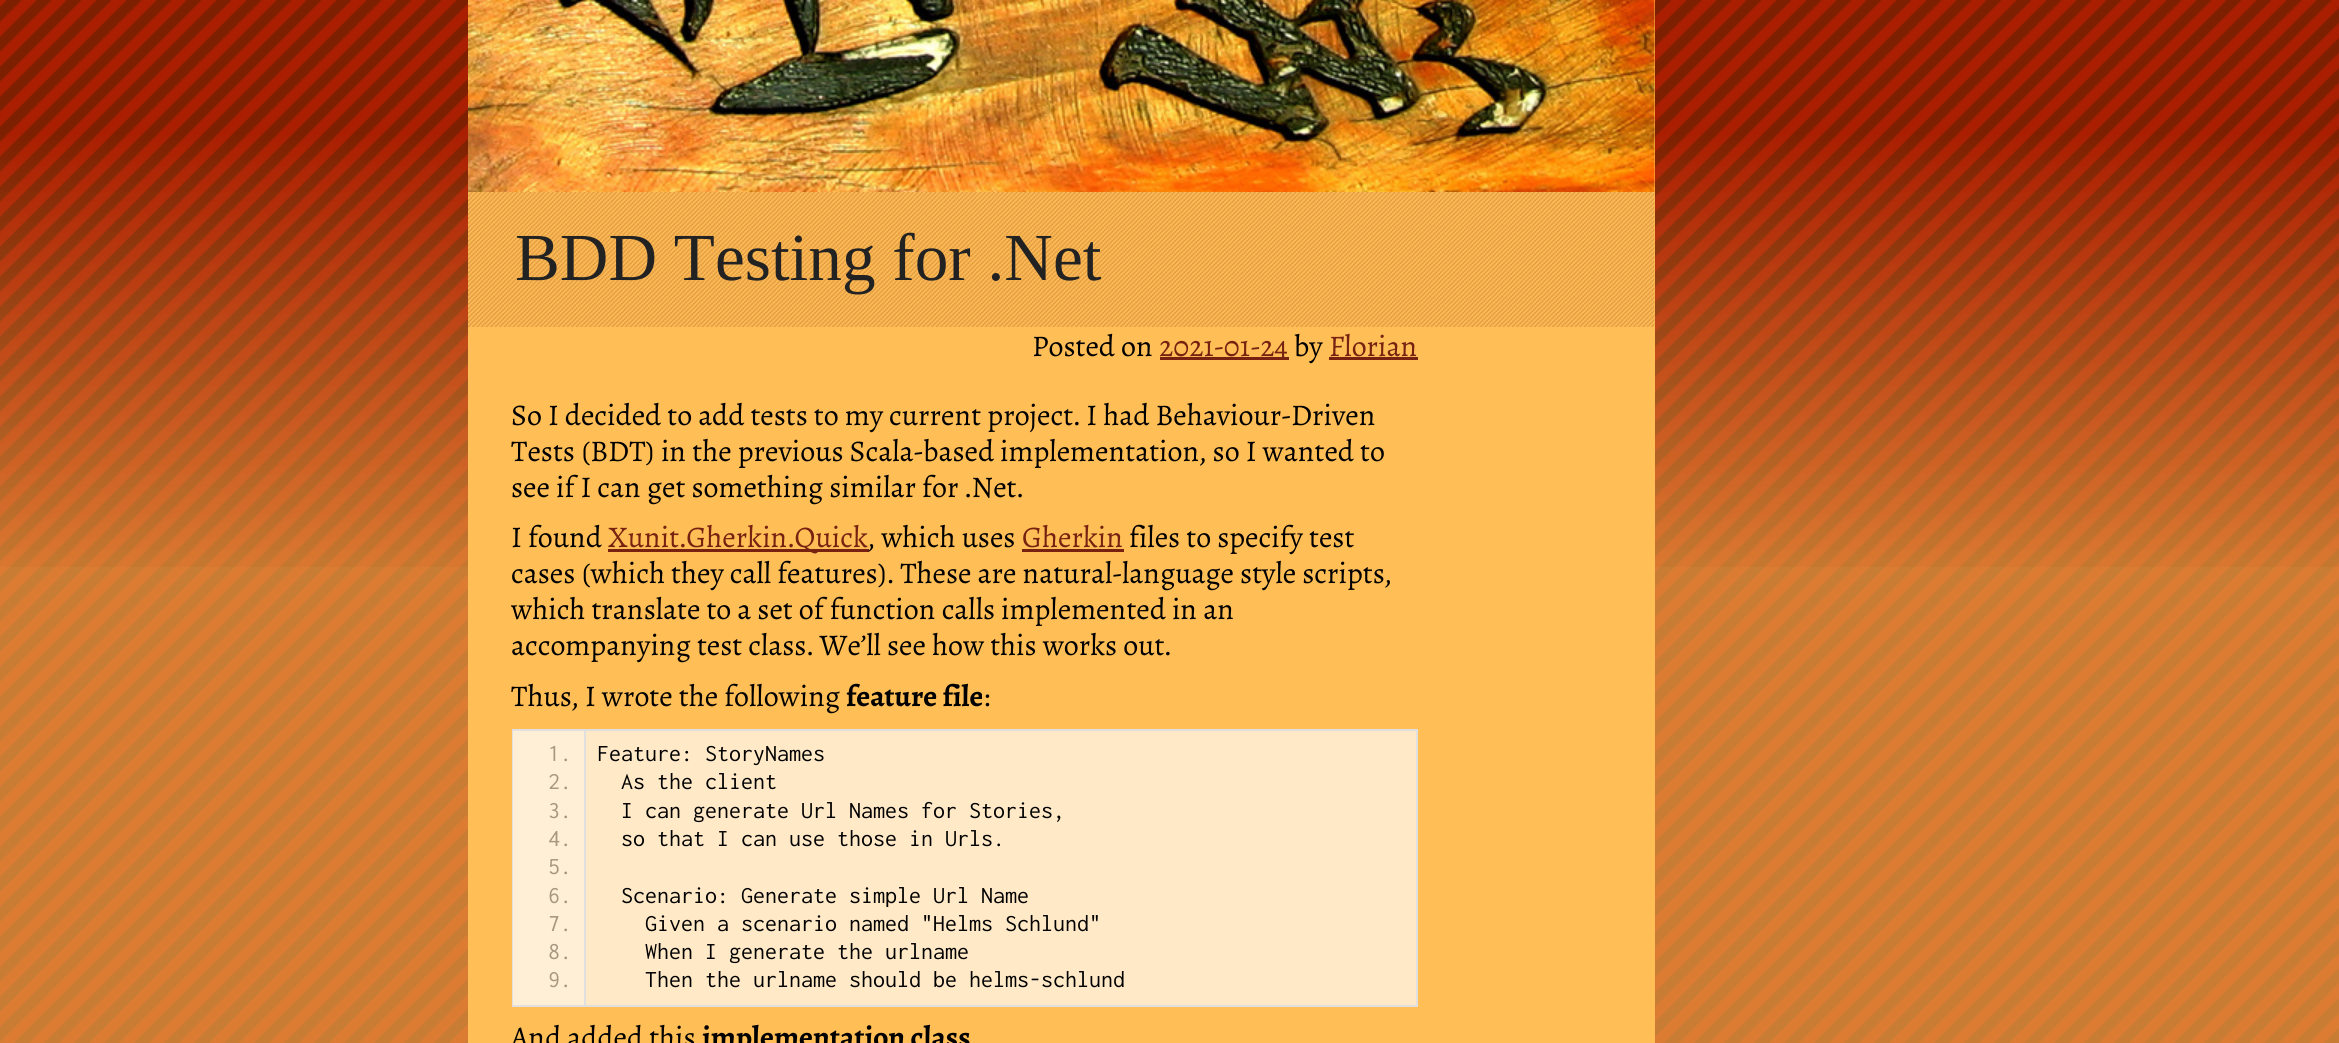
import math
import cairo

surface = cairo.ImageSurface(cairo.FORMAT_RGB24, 2339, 1043)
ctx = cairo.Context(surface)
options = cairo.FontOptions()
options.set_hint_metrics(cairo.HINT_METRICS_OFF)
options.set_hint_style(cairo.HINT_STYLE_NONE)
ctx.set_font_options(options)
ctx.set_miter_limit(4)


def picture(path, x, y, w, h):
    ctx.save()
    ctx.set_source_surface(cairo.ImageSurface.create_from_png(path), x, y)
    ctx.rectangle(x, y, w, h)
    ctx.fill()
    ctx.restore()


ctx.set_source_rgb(1, 1, 1)
ctx.paint()
picture("img1.png", 0, 567, 2339, 476)
picture("img2.png", 0, 0, 2339, 567)
ctx.set_source_rgb(1, 0.745, 0.337)
ctx.rectangle(468, 0, 1187, 1043)
ctx.fill()
picture("img3.png", 468, 0, 1187, 192)
picture("img4.png", 468, 192, 1187, 135)
ctx.select_font_face("Liberation Serif")
ctx.set_font_size(67.25)
ctx.set_source_rgb(0.133, 0.133, 0.133)
ctx.move_to(515, 280)
ctx.show_text("BDD Testing for .Net")
ctx.select_font_face("Alegreya")
ctx.set_font_size(30)
ctx.set_source_rgb(0, 0, 0)
ctx.move_to(1032, 356)
ctx.show_text("Posted on")
ctx.set_source_rgb(0.467, 0.133, 0.067)
ctx.rectangle(1160, 357, 129, 3)
ctx.fill()
ctx.move_to(1159, 356)
ctx.show_text("2021-01-24")
ctx.set_source_rgb(0, 0, 0)
ctx.move_to(1294, 356)
ctx.show_text("by")
ctx.set_source_rgb(0.467, 0.133, 0.067)
ctx.rectangle(1329, 357, 89, 3)
ctx.fill()
ctx.move_to(1329, 356)
ctx.show_text("Florian")
ctx.set_source_rgb(0, 0, 0)
ctx.move_to(511, 425)
ctx.show_text("So I decided to add tests to my current project. I had Behaviour-Driven")
ctx.move_to(511, 461)
ctx.show_text("Tests (BDT) in the previous Scala-based implementation, so I wanted to")
ctx.move_to(511, 497)
ctx.show_text("see if I can get something similar for .Net.")
ctx.move_to(511, 547)
ctx.show_text("I found")
ctx.set_source_rgb(0.467, 0.133, 0.067)
ctx.rectangle(608, 549, 261, 3)
ctx.fill()
ctx.move_to(608, 547)
ctx.show_text("Xunit.Gherkin.Quick")
ctx.set_source_rgb(0, 0, 0)
ctx.move_to(868, 547)
ctx.show_text(", which uses")
ctx.set_source_rgb(0.467, 0.133, 0.067)
ctx.move_to(1022, 547)
ctx.show_text("Gherkin")
ctx.rectangle(1022, 549, 102, 3)
ctx.fill()
ctx.set_source_rgb(0, 0, 0)
ctx.move_to(1129, 547)
ctx.show_text("files to specify test")
ctx.move_to(511, 583)
ctx.show_text("cases (which they call features). These are natural-language style scripts,")
ctx.move_to(511, 619)
ctx.show_text("which translate to a set of function calls implemented in an")
ctx.move_to(511, 655)
ctx.show_text("accompanying test class. We’ll see how this works out.")
ctx.move_to(511, 706)
ctx.show_text("Thus, I wrote the following")
ctx.select_font_face("Alegreya", cairo.FONT_SLANT_NORMAL, cairo.FONT_WEIGHT_BOLD)
ctx.move_to(846, 706)
ctx.show_text("feature file")
ctx.select_font_face("Alegreya")
ctx.move_to(984, 706)
ctx.show_text(":")
ctx.set_source_rgb(1, 0.914, 0.78)
ctx.rectangle(586, 731, 830, 274)
ctx.fill()
ctx.rectangle(513, 730, 904, 276)
ctx.set_source_rgb(0.878, 0.878, 0.878)
ctx.stroke()
ctx.set_source_rgb(1, 0.937, 0.839)
ctx.rectangle(513, 731, 71, 274)
ctx.fill()
ctx.select_font_face("Inconsolata")
ctx.set_font_size(24)
ctx.set_source_rgb(0.651, 0.592, 0.506)
ctx.move_to(548, 761)
ctx.show_text("1.")
ctx.set_source_rgb(0, 0, 0)
ctx.move_to(597, 761)
ctx.show_text("Feature: StoryNames")
ctx.set_source_rgb(0.651, 0.592, 0.506)
ctx.move_to(548, 789)
ctx.show_text("2.")
ctx.set_source_rgb(0, 0, 0)
ctx.move_to(621, 789)
ctx.show_text("As the client")
ctx.set_source_rgb(0.651, 0.592, 0.506)
ctx.move_to(548, 818)
ctx.show_text("3.")
ctx.set_source_rgb(0, 0, 0)
ctx.move_to(621, 818)
ctx.show_text("I can generate Url Names for Stories,")
ctx.set_source_rgb(0.651, 0.592, 0.506)
ctx.move_to(548, 846)
ctx.show_text("4.")
ctx.set_source_rgb(0, 0, 0)
ctx.move_to(621, 846)
ctx.show_text("so that I can use those in Urls.")
ctx.set_source_rgb(0.651, 0.592, 0.506)
ctx.move_to(548, 874)
ctx.show_text("5.")
ctx.move_to(548, 903)
ctx.show_text("6.")
ctx.set_source_rgb(0, 0, 0)
ctx.move_to(621, 903)
ctx.show_text("Scenario: Generate simple Url Name")
ctx.set_source_rgb(0.651, 0.592, 0.506)
ctx.move_to(548, 931)
ctx.show_text("7.")
ctx.set_source_rgb(0, 0, 0)
ctx.move_to(645, 931)
ctx.show_text("Given a scenario named \"Helms Schlund\"")
ctx.set_source_rgb(0.651, 0.592, 0.506)
ctx.move_to(548, 959)
ctx.show_text("8.")
ctx.set_source_rgb(0, 0, 0)
ctx.move_to(645, 959)
ctx.show_text("When I generate the urlname")
ctx.set_source_rgb(0.878, 0.878, 0.878)
ctx.rectangle(584, 731, 2, 274)
ctx.fill()
ctx.set_source_rgb(0.651, 0.592, 0.506)
ctx.move_to(548, 987)
ctx.show_text("9.")
ctx.set_source_rgb(0, 0, 0)
ctx.move_to(645, 987)
ctx.show_text("Then the urlname should be helms-schlund")
ctx.select_font_face("Alegreya")
ctx.set_font_size(30)
ctx.move_to(511, 1047)
ctx.show_text("And added this")
ctx.select_font_face("Alegreya", cairo.FONT_SLANT_NORMAL, cairo.FONT_WEIGHT_BOLD)
ctx.move_to(702, 1047)
ctx.show_text("implementation class")
surface.write_to_png("page.png")
